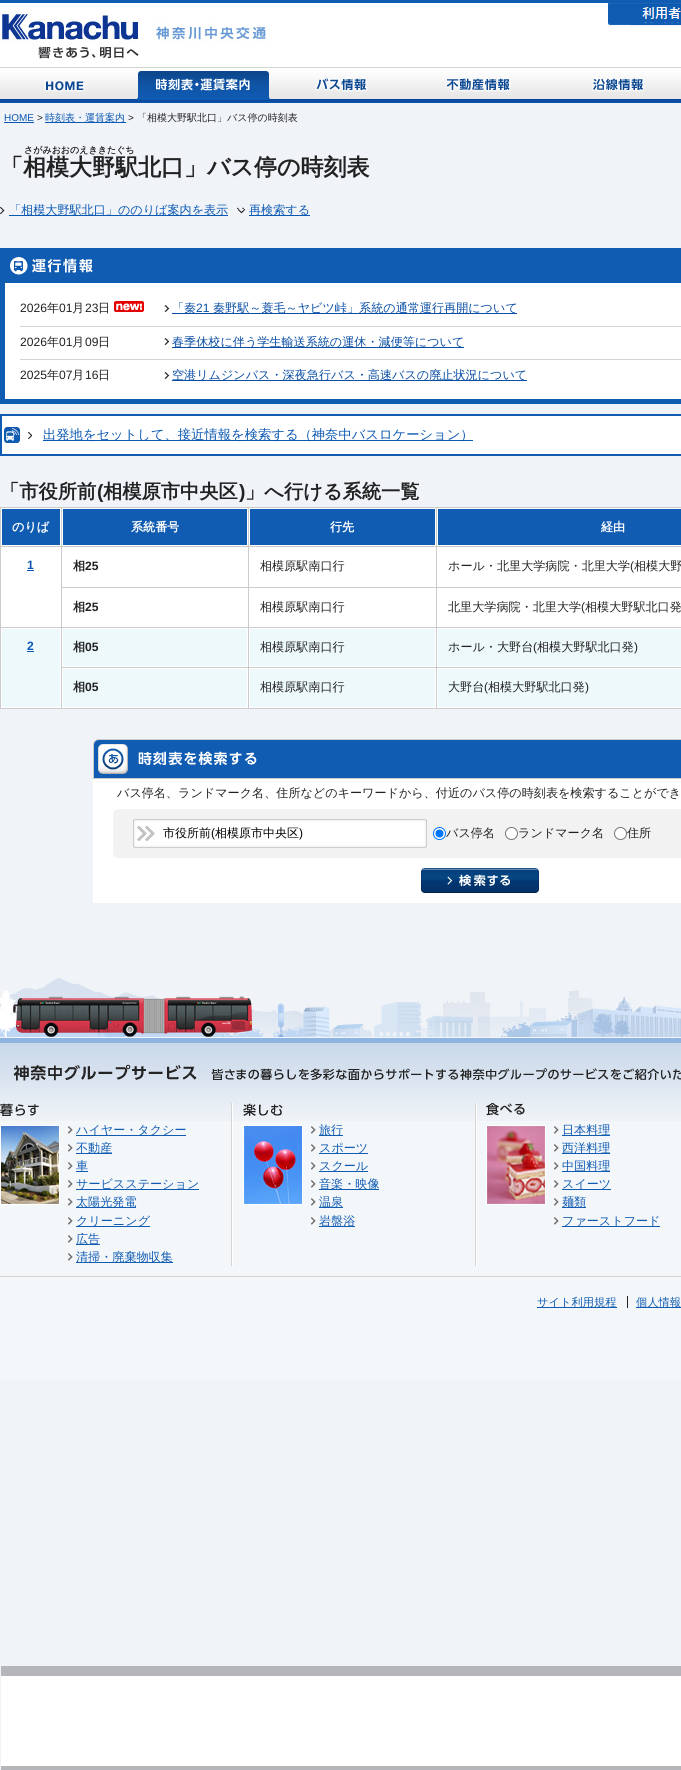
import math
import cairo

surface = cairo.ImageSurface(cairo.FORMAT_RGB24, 681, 1770)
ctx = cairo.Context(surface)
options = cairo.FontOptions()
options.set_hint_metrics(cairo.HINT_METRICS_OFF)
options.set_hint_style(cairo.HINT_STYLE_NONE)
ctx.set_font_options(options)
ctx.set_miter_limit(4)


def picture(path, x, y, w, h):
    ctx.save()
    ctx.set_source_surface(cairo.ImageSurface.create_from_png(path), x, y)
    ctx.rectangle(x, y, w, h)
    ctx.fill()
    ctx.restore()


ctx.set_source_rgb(0.941, 0.953, 0.969)
ctx.paint()
picture("img1.png", 0, 0, 681, 103)
picture("img2.png", 0, 11, 270, 48)
picture("img3.png", 608, 3, 73, 23)
picture("img4.png", 44, 80, 41, 12)
picture("img5.png", 137, 71, 133, 29)
picture("img6.png", 315, 78, 52, 14)
picture("img7.png", 446, 78, 65, 14)
picture("img8.png", 592, 78, 52, 14)
ctx.select_font_face("Liberation Sans")
ctx.set_font_size(10)
ctx.set_source_rgb(0.043, 0.345, 0.698)
ctx.move_to(4, 121)
ctx.show_text("HOME")
ctx.rectangle(4, 122, 30, 1)
ctx.fill()
ctx.set_source_rgb(0.133, 0.133, 0.133)
ctx.move_to(37, 121)
ctx.show_text(">")
ctx.set_source_rgb(0.043, 0.345, 0.698)
ctx.rectangle(45, 122, 81, 1)
ctx.fill()
ctx.select_font_face("WenQuanYi Zen Hei Medium")
ctx.move_to(45, 121)
ctx.show_text("時刻表・運賃案内")
ctx.select_font_face("Liberation Sans")
ctx.set_source_rgb(0.133, 0.133, 0.133)
ctx.move_to(128, 121)
ctx.show_text(">")
ctx.select_font_face("WenQuanYi Zen Hei Medium")
ctx.move_to(137, 121)
ctx.show_text("「相模大野駅北口」バス停の時刻表")
ctx.select_font_face("WenQuanYi Zen Hei", cairo.FONT_SLANT_NORMAL, cairo.FONT_WEIGHT_BOLD)
ctx.set_font_size(23)
ctx.move_to(0, 175)
ctx.show_text("「")
ctx.set_font_size(9)
ctx.move_to(24, 153)
ctx.show_text("さがみおおのえききたぐち")
ctx.set_font_size(23)
ctx.move_to(23, 175)
ctx.show_text("相模大野駅北口」バス停の時刻表")
picture("img9.png", 0, 206, 5, 9)
ctx.set_source_rgb(0.043, 0.345, 0.698)
ctx.rectangle(9, 215, 219, 1)
ctx.fill()
ctx.select_font_face("WenQuanYi Zen Hei Medium")
ctx.set_font_size(12.1)
ctx.move_to(9, 214)
ctx.show_text("「相模大野駅北口」ののりば案内を表示")
picture("img10.png", 237, 207, 7, 2)
picture("img11.png", 237, 209, 9, 5)
ctx.rectangle(249, 215, 61, 1)
ctx.fill()
ctx.move_to(249, 214)
ctx.show_text("再検索する")
ctx.set_source_rgb(1, 1, 1)
ctx.rectangle(5, 283, 676, 116)
ctx.fill()
ctx.rectangle(2.5, 250.5, 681, 151)
ctx.set_source_rgb(0.067, 0.361, 0.702)
ctx.set_line_width(5)
ctx.stroke()
ctx.rectangle(5, 253, 676, 30)
ctx.fill()
picture("img12.png", 10, 257, 83, 18)
ctx.select_font_face("Liberation Sans")
ctx.set_source_rgb(0.133, 0.133, 0.133)
ctx.move_to(20, 312)
ctx.show_text("2026")
ctx.select_font_face("WenQuanYi Zen Hei Medium")
ctx.move_to(47, 312)
ctx.show_text("年")
ctx.select_font_face("Liberation Sans")
ctx.move_to(59, 312)
ctx.show_text("01")
ctx.select_font_face("WenQuanYi Zen Hei Medium")
ctx.move_to(72, 312)
ctx.show_text("月")
ctx.select_font_face("Liberation Sans")
ctx.move_to(85, 312)
ctx.show_text("23")
ctx.select_font_face("WenQuanYi Zen Hei Medium")
ctx.move_to(98, 312)
ctx.show_text("日")
picture("img13.png", 114, 301, 30, 11)
ctx.set_source_rgb(0.816, 0.831, 0.851)
ctx.rectangle(20, 326, 661, 1)
ctx.fill()
picture("img14.png", 164, 305, 6, 7)
ctx.set_source_rgb(0.039, 0.306, 0.647)
ctx.rectangle(172, 313, 345, 1)
ctx.fill()
ctx.move_to(172, 312)
ctx.show_text("「秦")
ctx.select_font_face("Liberation Sans")
ctx.move_to(196, 312)
ctx.show_text("21")
ctx.select_font_face("WenQuanYi Zen Hei Medium")
ctx.move_to(213, 312)
ctx.show_text("秦野駅～蓑毛～ヤビツ峠」系統の通常運行再開について")
ctx.select_font_face("Liberation Sans")
ctx.set_source_rgb(0.133, 0.133, 0.133)
ctx.move_to(20, 346)
ctx.show_text("2026")
ctx.select_font_face("WenQuanYi Zen Hei Medium")
ctx.move_to(47, 346)
ctx.show_text("年")
ctx.select_font_face("Liberation Sans")
ctx.move_to(59, 346)
ctx.show_text("01")
ctx.select_font_face("WenQuanYi Zen Hei Medium")
ctx.move_to(72, 346)
ctx.show_text("月")
ctx.select_font_face("Liberation Sans")
ctx.move_to(85, 346)
ctx.show_text("09")
ctx.select_font_face("WenQuanYi Zen Hei Medium")
ctx.move_to(98, 346)
ctx.show_text("日")
ctx.set_source_rgb(0.816, 0.831, 0.851)
ctx.rectangle(20, 359, 661, 1)
ctx.fill()
picture("img14.png", 164, 338, 6, 7)
ctx.set_source_rgb(0.039, 0.306, 0.647)
ctx.rectangle(172, 347, 292, 1)
ctx.fill()
ctx.move_to(172, 346)
ctx.show_text("春季休校に伴う学生輸送系統の運休・減便等について")
ctx.select_font_face("Liberation Sans")
ctx.set_source_rgb(0.133, 0.133, 0.133)
ctx.move_to(20, 379)
ctx.show_text("2025")
ctx.select_font_face("WenQuanYi Zen Hei Medium")
ctx.move_to(47, 379)
ctx.show_text("年")
ctx.select_font_face("Liberation Sans")
ctx.move_to(59, 379)
ctx.show_text("07")
ctx.select_font_face("WenQuanYi Zen Hei Medium")
ctx.move_to(72, 379)
ctx.show_text("月")
ctx.select_font_face("Liberation Sans")
ctx.move_to(85, 379)
ctx.show_text("16")
ctx.select_font_face("WenQuanYi Zen Hei Medium")
ctx.move_to(98, 379)
ctx.show_text("日")
picture("img14.png", 164, 372, 6, 7)
ctx.set_source_rgb(0.039, 0.306, 0.647)
ctx.rectangle(172, 380, 355, 1)
ctx.fill()
ctx.move_to(172, 379)
ctx.show_text("空港リムジンバス・深夜急行バス・高速バスの廃止状況について")
ctx.set_source_rgb(1, 1, 1)
ctx.rectangle(1, 415, 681, 40)
ctx.fill_preserve()
ctx.set_source_rgb(0.067, 0.361, 0.702)
ctx.set_line_width(2)
ctx.stroke()
picture("img15.png", 4, 427, 28, 16)
ctx.set_source_rgb(0.043, 0.345, 0.698)
ctx.rectangle(43, 440, 430, 1)
ctx.fill()
ctx.set_font_size(13.3)
ctx.move_to(43, 439)
ctx.show_text("出発地をセットして、接近情報を検索する（神奈中バスロケーション）")
ctx.select_font_face("WenQuanYi Zen Hei", cairo.FONT_SLANT_NORMAL, cairo.FONT_WEIGHT_BOLD)
ctx.set_font_size(19.25)
ctx.set_source_rgb(0.133, 0.133, 0.133)
ctx.move_to(0, 498)
ctx.show_text("「市役所前")
ctx.select_font_face("Liberation Sans", cairo.FONT_SLANT_NORMAL, cairo.FONT_WEIGHT_BOLD)
ctx.move_to(97, 498)
ctx.show_text("(")
ctx.select_font_face("WenQuanYi Zen Hei", cairo.FONT_SLANT_NORMAL, cairo.FONT_WEIGHT_BOLD)
ctx.move_to(103, 498)
ctx.show_text("相模原市中央区")
ctx.select_font_face("Liberation Sans", cairo.FONT_SLANT_NORMAL, cairo.FONT_WEIGHT_BOLD)
ctx.move_to(239, 498)
ctx.show_text(")")
ctx.select_font_face("WenQuanYi Zen Hei", cairo.FONT_SLANT_NORMAL, cairo.FONT_WEIGHT_BOLD)
ctx.move_to(245, 498)
ctx.show_text("」へ行ける系統一覧")
ctx.set_source_rgb(0.8, 0.8, 0.8)
ctx.rectangle(0, 507, 681, 202)
ctx.fill()
ctx.set_source_rgb(0.067, 0.361, 0.702)
ctx.rectangle(1.5, 508.5, 59, 37)
ctx.fill_preserve()
ctx.set_source_rgb(1, 1, 1)
ctx.set_line_width(1)
ctx.stroke()
ctx.set_font_size(12.1)
ctx.move_to(12, 531)
ctx.show_text("のりば")
ctx.set_source_rgb(0.067, 0.361, 0.702)
ctx.rectangle(62.5, 508.5, 185, 37)
ctx.fill_preserve()
ctx.set_source_rgb(1, 1, 1)
ctx.stroke()
ctx.move_to(131, 531)
ctx.show_text("系統番号")
ctx.set_source_rgb(0.067, 0.361, 0.702)
ctx.rectangle(249.5, 508.5, 186, 37)
ctx.fill_preserve()
ctx.set_source_rgb(1, 1, 1)
ctx.stroke()
ctx.move_to(330, 531)
ctx.show_text("行先")
ctx.set_source_rgb(0.067, 0.361, 0.702)
ctx.rectangle(437.5, 508.5, 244, 37)
ctx.fill_preserve()
ctx.set_source_rgb(1, 1, 1)
ctx.stroke()
ctx.move_to(601, 531)
ctx.show_text("経由")
ctx.rectangle(1, 547, 60, 80)
ctx.fill()
ctx.select_font_face("Liberation Sans", cairo.FONT_SLANT_NORMAL, cairo.FONT_WEIGHT_BOLD)
ctx.set_source_rgb(0.043, 0.345, 0.698)
ctx.move_to(27, 569)
ctx.show_text("1")
ctx.rectangle(27, 570, 7, 1)
ctx.fill()
ctx.set_source_rgb(1, 1, 1)
ctx.rectangle(62, 547, 186, 40)
ctx.fill()
ctx.select_font_face("WenQuanYi Zen Hei", cairo.FONT_SLANT_NORMAL, cairo.FONT_WEIGHT_BOLD)
ctx.set_source_rgb(0.133, 0.133, 0.133)
ctx.move_to(73, 570)
ctx.show_text("相")
ctx.select_font_face("Liberation Sans", cairo.FONT_SLANT_NORMAL, cairo.FONT_WEIGHT_BOLD)
ctx.move_to(85, 570)
ctx.show_text("25")
ctx.set_source_rgb(1, 1, 1)
ctx.rectangle(249, 547, 187, 40)
ctx.fill()
ctx.select_font_face("WenQuanYi Zen Hei Medium")
ctx.set_source_rgb(0.133, 0.133, 0.133)
ctx.move_to(260, 570)
ctx.show_text("相模原駅南口行")
ctx.set_source_rgb(1, 1, 1)
ctx.rectangle(437, 547, 244, 40)
ctx.fill()
ctx.set_source_rgb(0.133, 0.133, 0.133)
ctx.move_to(448, 570)
ctx.show_text("ホール・北里大学病院・北里大学")
ctx.select_font_face("Liberation Sans")
ctx.move_to(630, 570)
ctx.show_text("(")
ctx.select_font_face("WenQuanYi Zen Hei Medium")
ctx.move_to(634, 570)
ctx.show_text("相模大野")
ctx.set_source_rgb(1, 1, 1)
ctx.rectangle(62, 588, 186, 39)
ctx.fill()
ctx.select_font_face("WenQuanYi Zen Hei", cairo.FONT_SLANT_NORMAL, cairo.FONT_WEIGHT_BOLD)
ctx.set_source_rgb(0.133, 0.133, 0.133)
ctx.move_to(73, 611)
ctx.show_text("相")
ctx.select_font_face("Liberation Sans", cairo.FONT_SLANT_NORMAL, cairo.FONT_WEIGHT_BOLD)
ctx.move_to(85, 611)
ctx.show_text("25")
ctx.set_source_rgb(1, 1, 1)
ctx.rectangle(249, 588, 187, 39)
ctx.fill()
ctx.select_font_face("WenQuanYi Zen Hei Medium")
ctx.set_source_rgb(0.133, 0.133, 0.133)
ctx.move_to(260, 611)
ctx.show_text("相模原駅南口行")
ctx.set_source_rgb(1, 1, 1)
ctx.rectangle(437, 588, 244, 39)
ctx.fill()
ctx.set_source_rgb(0.133, 0.133, 0.133)
ctx.move_to(448, 611)
ctx.show_text("北里大学病院・北里大学")
ctx.select_font_face("Liberation Sans")
ctx.move_to(581, 611)
ctx.show_text("(")
ctx.select_font_face("WenQuanYi Zen Hei Medium")
ctx.move_to(585, 611)
ctx.show_text("相模大野駅北口発")
ctx.set_source_rgb(0.933, 0.973, 0.984)
ctx.rectangle(1.5, 628.5, 59, 79)
ctx.fill_preserve()
ctx.set_source_rgb(1, 1, 1)
ctx.stroke()
ctx.select_font_face("Liberation Sans", cairo.FONT_SLANT_NORMAL, cairo.FONT_WEIGHT_BOLD)
ctx.set_source_rgb(0.043, 0.345, 0.698)
ctx.move_to(27, 650)
ctx.show_text("2")
ctx.rectangle(27, 651, 7, 1)
ctx.fill()
ctx.set_source_rgb(0.933, 0.973, 0.984)
ctx.rectangle(62.5, 628.5, 185, 38)
ctx.fill_preserve()
ctx.set_source_rgb(1, 1, 1)
ctx.stroke()
ctx.select_font_face("WenQuanYi Zen Hei", cairo.FONT_SLANT_NORMAL, cairo.FONT_WEIGHT_BOLD)
ctx.set_source_rgb(0.133, 0.133, 0.133)
ctx.move_to(73, 651)
ctx.show_text("相")
ctx.select_font_face("Liberation Sans", cairo.FONT_SLANT_NORMAL, cairo.FONT_WEIGHT_BOLD)
ctx.move_to(85, 651)
ctx.show_text("05")
ctx.set_source_rgb(0.933, 0.973, 0.984)
ctx.rectangle(249.5, 628.5, 186, 38)
ctx.fill_preserve()
ctx.set_source_rgb(1, 1, 1)
ctx.stroke()
ctx.select_font_face("WenQuanYi Zen Hei Medium")
ctx.set_source_rgb(0.133, 0.133, 0.133)
ctx.move_to(260, 651)
ctx.show_text("相模原駅南口行")
ctx.set_source_rgb(0.933, 0.973, 0.984)
ctx.rectangle(437.5, 628.5, 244, 38)
ctx.fill_preserve()
ctx.set_source_rgb(1, 1, 1)
ctx.stroke()
ctx.set_source_rgb(0.133, 0.133, 0.133)
ctx.move_to(448, 651)
ctx.show_text("ホール・大野台")
ctx.select_font_face("Liberation Sans")
ctx.move_to(533, 651)
ctx.show_text("(")
ctx.select_font_face("WenQuanYi Zen Hei Medium")
ctx.move_to(537, 651)
ctx.show_text("相模大野駅北口発")
ctx.select_font_face("Liberation Sans")
ctx.move_to(634, 651)
ctx.show_text(")")
ctx.set_source_rgb(0.933, 0.973, 0.984)
ctx.rectangle(62.5, 668.5, 185, 39)
ctx.fill_preserve()
ctx.set_source_rgb(1, 1, 1)
ctx.stroke()
ctx.select_font_face("WenQuanYi Zen Hei", cairo.FONT_SLANT_NORMAL, cairo.FONT_WEIGHT_BOLD)
ctx.set_source_rgb(0.133, 0.133, 0.133)
ctx.move_to(73, 691)
ctx.show_text("相")
ctx.select_font_face("Liberation Sans", cairo.FONT_SLANT_NORMAL, cairo.FONT_WEIGHT_BOLD)
ctx.move_to(85, 691)
ctx.show_text("05")
ctx.set_source_rgb(0.933, 0.973, 0.984)
ctx.rectangle(249.5, 668.5, 186, 39)
ctx.fill_preserve()
ctx.set_source_rgb(1, 1, 1)
ctx.stroke()
ctx.select_font_face("WenQuanYi Zen Hei Medium")
ctx.set_source_rgb(0.133, 0.133, 0.133)
ctx.move_to(260, 691)
ctx.show_text("相模原駅南口行")
ctx.set_source_rgb(0.933, 0.973, 0.984)
ctx.rectangle(437.5, 668.5, 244, 39)
ctx.fill_preserve()
ctx.set_source_rgb(1, 1, 1)
ctx.stroke()
ctx.set_source_rgb(0.133, 0.133, 0.133)
ctx.move_to(448, 691)
ctx.show_text("大野台")
ctx.select_font_face("Liberation Sans")
ctx.move_to(484, 691)
ctx.show_text("(")
ctx.select_font_face("WenQuanYi Zen Hei Medium")
ctx.move_to(488, 691)
ctx.show_text("相模大野駅北口発")
ctx.select_font_face("Liberation Sans")
ctx.move_to(585, 691)
ctx.show_text(")")
ctx.set_source_rgb(1, 1, 1)
ctx.rectangle(93, 779, 588, 124)
ctx.fill()
picture("img16.png", 93, 739, 588, 40)
ctx.select_font_face("WenQuanYi Zen Hei Medium")
ctx.set_source_rgb(0.133, 0.133, 0.133)
ctx.move_to(117, 797)
ctx.show_text("バス停名、ランドマーク名、住所などのキーワードから、付近のバス停の時刻表を検索することができ")
picture("img17.png", 113, 809, 568, 44)
picture("img18.png", 133, 819, 294, 29)
ctx.set_font_size(12)
ctx.set_source_rgb(0, 0, 0)
ctx.move_to(163, 837)
ctx.show_text("市役所前")
ctx.select_font_face("Liberation Sans")
ctx.move_to(211, 837)
ctx.show_text("(")
ctx.select_font_face("WenQuanYi Zen Hei Medium")
ctx.move_to(215, 837)
ctx.show_text("相模原市中央区")
ctx.select_font_face("Liberation Sans")
ctx.move_to(299, 837)
ctx.show_text(")")
ctx.set_source_rgb(1, 1, 1)
ctx.new_path()
ctx.arc(439.5, 833.5, 6, 0, 2 * math.pi)
ctx.fill_preserve()
ctx.set_source_rgb(0, 0.459, 1)
ctx.stroke()
ctx.arc(439.5, 833.5, 4, 0, 2 * math.pi)
ctx.fill()
ctx.select_font_face("WenQuanYi Zen Hei Medium")
ctx.set_font_size(12.1)
ctx.set_source_rgb(0.133, 0.133, 0.133)
ctx.move_to(446, 837)
ctx.show_text("バス停名")
ctx.set_source_rgb(1, 1, 1)
ctx.new_path()
ctx.arc(511.5, 833.5, 6, 0, 2 * math.pi)
ctx.fill_preserve()
ctx.set_source_rgb(0.463, 0.463, 0.463)
ctx.stroke()
ctx.set_source_rgb(0.133, 0.133, 0.133)
ctx.move_to(518, 837)
ctx.show_text("ランドマーク名")
ctx.set_source_rgb(1, 1, 1)
ctx.new_path()
ctx.arc(620.5, 833.5, 6, 0, 2 * math.pi)
ctx.fill_preserve()
ctx.set_source_rgb(0.463, 0.463, 0.463)
ctx.stroke()
ctx.set_source_rgb(0.133, 0.133, 0.133)
ctx.move_to(627, 837)
ctx.show_text("住所")
picture("img19.png", 113, 853, 568, 5)
picture("img20.png", 421, 868, 118, 25)
ctx.set_source_rgb(0.706, 0.714, 0.725)
ctx.rectangle(1, 1666, 680, 104)
ctx.fill()
ctx.set_source_rgb(1, 1, 1)
ctx.rectangle(1, 1676, 680, 90)
ctx.fill()
picture("img21.png", 0, 967, 681, 71)
ctx.set_source_rgb(0.957, 0.965, 0.976)
ctx.rectangle(0, 1121, 681, 155)
ctx.fill()
picture("img22.png", 0, 1043, 681, 78)
ctx.set_source_rgb(0.553, 0.702, 0.878)
ctx.rectangle(0, 1038, 681, 5)
ctx.fill()
picture("img23.png", 13, 1064, 668, 17)
picture("img24.png", 231, 1103, 246, 163)
picture("img25.png", 0, 1103, 39, 13)
ctx.rectangle(0.5, 1125.5, 59, 79)
ctx.set_source_rgb(1, 1, 1)
ctx.stroke()
picture("img26.png", 1, 1126, 58, 78)
picture("img27.png", 68, 1126, 5, 8)
ctx.set_source_rgb(0.067, 0.361, 0.702)
ctx.rectangle(76, 1135, 110, 1)
ctx.fill()
ctx.move_to(76, 1134)
ctx.show_text("ハイヤー・タクシー")
picture("img27.png", 68, 1144, 5, 8)
ctx.rectangle(76, 1153, 36, 1)
ctx.fill()
ctx.move_to(76, 1152)
ctx.show_text("不動産")
picture("img27.png", 68, 1162, 5, 8)
ctx.rectangle(76, 1171, 12, 1)
ctx.fill()
ctx.move_to(76, 1170)
ctx.show_text("車")
picture("img27.png", 68, 1180, 5, 8)
ctx.rectangle(76, 1189, 123, 1)
ctx.fill()
ctx.move_to(76, 1188)
ctx.show_text("サービスステーション")
picture("img27.png", 68, 1198, 5, 8)
ctx.rectangle(76, 1207, 60, 1)
ctx.fill()
ctx.move_to(76, 1206)
ctx.show_text("太陽光発電")
picture("img27.png", 68, 1217, 5, 8)
ctx.rectangle(76, 1226, 74, 1)
ctx.fill()
ctx.move_to(76, 1225)
ctx.show_text("クリーニング")
picture("img27.png", 68, 1235, 5, 8)
ctx.rectangle(76, 1244, 24, 1)
ctx.fill()
ctx.move_to(76, 1243)
ctx.show_text("広告")
picture("img27.png", 68, 1253, 5, 8)
ctx.rectangle(76, 1262, 97, 1)
ctx.fill()
ctx.move_to(76, 1261)
ctx.show_text("清掃・廃棄物収集")
picture("img28.png", 243, 1103, 40, 13)
ctx.rectangle(243.5, 1125.5, 59, 79)
ctx.set_source_rgb(1, 1, 1)
ctx.stroke()
picture("img29.png", 244, 1126, 58, 78)
picture("img27.png", 311, 1126, 5, 8)
ctx.set_source_rgb(0.067, 0.361, 0.702)
ctx.rectangle(319, 1135, 24, 1)
ctx.fill()
ctx.move_to(319, 1134)
ctx.show_text("旅行")
picture("img27.png", 311, 1144, 5, 8)
ctx.rectangle(319, 1153, 49, 1)
ctx.fill()
ctx.move_to(319, 1152)
ctx.show_text("スポーツ")
picture("img27.png", 311, 1162, 5, 8)
ctx.rectangle(319, 1171, 49, 1)
ctx.fill()
ctx.move_to(319, 1170)
ctx.show_text("スクール")
picture("img27.png", 311, 1180, 5, 8)
ctx.rectangle(319, 1189, 60, 1)
ctx.fill()
ctx.move_to(319, 1188)
ctx.show_text("音楽・映像")
picture("img27.png", 311, 1198, 5, 8)
ctx.rectangle(319, 1207, 24, 1)
ctx.fill()
ctx.move_to(319, 1206)
ctx.show_text("温泉")
picture("img27.png", 311, 1217, 5, 8)
ctx.rectangle(319, 1226, 36, 1)
ctx.fill()
ctx.move_to(319, 1225)
ctx.show_text("岩盤浴")
picture("img30.png", 486, 1103, 39, 13)
ctx.rectangle(486.5, 1125.5, 59, 79)
ctx.set_source_rgb(1, 1, 1)
ctx.stroke()
picture("img31.png", 487, 1126, 58, 78)
picture("img27.png", 554, 1126, 5, 8)
ctx.set_source_rgb(0.067, 0.361, 0.702)
ctx.rectangle(562, 1135, 48, 1)
ctx.fill()
ctx.move_to(562, 1134)
ctx.show_text("日本料理")
picture("img27.png", 554, 1144, 5, 8)
ctx.rectangle(562, 1153, 48, 1)
ctx.fill()
ctx.move_to(562, 1152)
ctx.show_text("西洋料理")
picture("img27.png", 554, 1162, 5, 8)
ctx.rectangle(562, 1171, 48, 1)
ctx.fill()
ctx.move_to(562, 1170)
ctx.show_text("中国料理")
picture("img27.png", 554, 1180, 5, 8)
ctx.rectangle(562, 1189, 49, 1)
ctx.fill()
ctx.move_to(562, 1188)
ctx.show_text("スイーツ")
picture("img27.png", 554, 1198, 5, 8)
ctx.rectangle(562, 1207, 24, 1)
ctx.fill()
ctx.move_to(562, 1206)
ctx.show_text("麺類")
picture("img27.png", 554, 1217, 5, 8)
ctx.rectangle(562, 1226, 98, 1)
ctx.fill()
ctx.move_to(562, 1225)
ctx.show_text("ファーストフード")
ctx.set_source_rgb(0.957, 0.965, 0.976)
ctx.rectangle(0, 1277, 681, 103)
ctx.fill()
ctx.set_source_rgb(0.831, 0.831, 0.835)
ctx.rectangle(0, 1276, 681, 1)
ctx.fill()
ctx.set_source_rgb(0.067, 0.361, 0.702)
ctx.rectangle(537, 1307, 80, 1)
ctx.fill()
ctx.set_font_size(11.25)
ctx.move_to(537, 1306)
ctx.show_text("サイト利用規程")
ctx.set_source_rgb(0.129, 0.129, 0.129)
ctx.rectangle(627, 1296, 1, 12)
ctx.fill()
ctx.set_source_rgb(0.067, 0.361, 0.702)
ctx.rectangle(636, 1307, 45, 1)
ctx.fill()
ctx.move_to(636, 1306)
ctx.show_text("個人情報")
surface.write_to_png("page.png")
